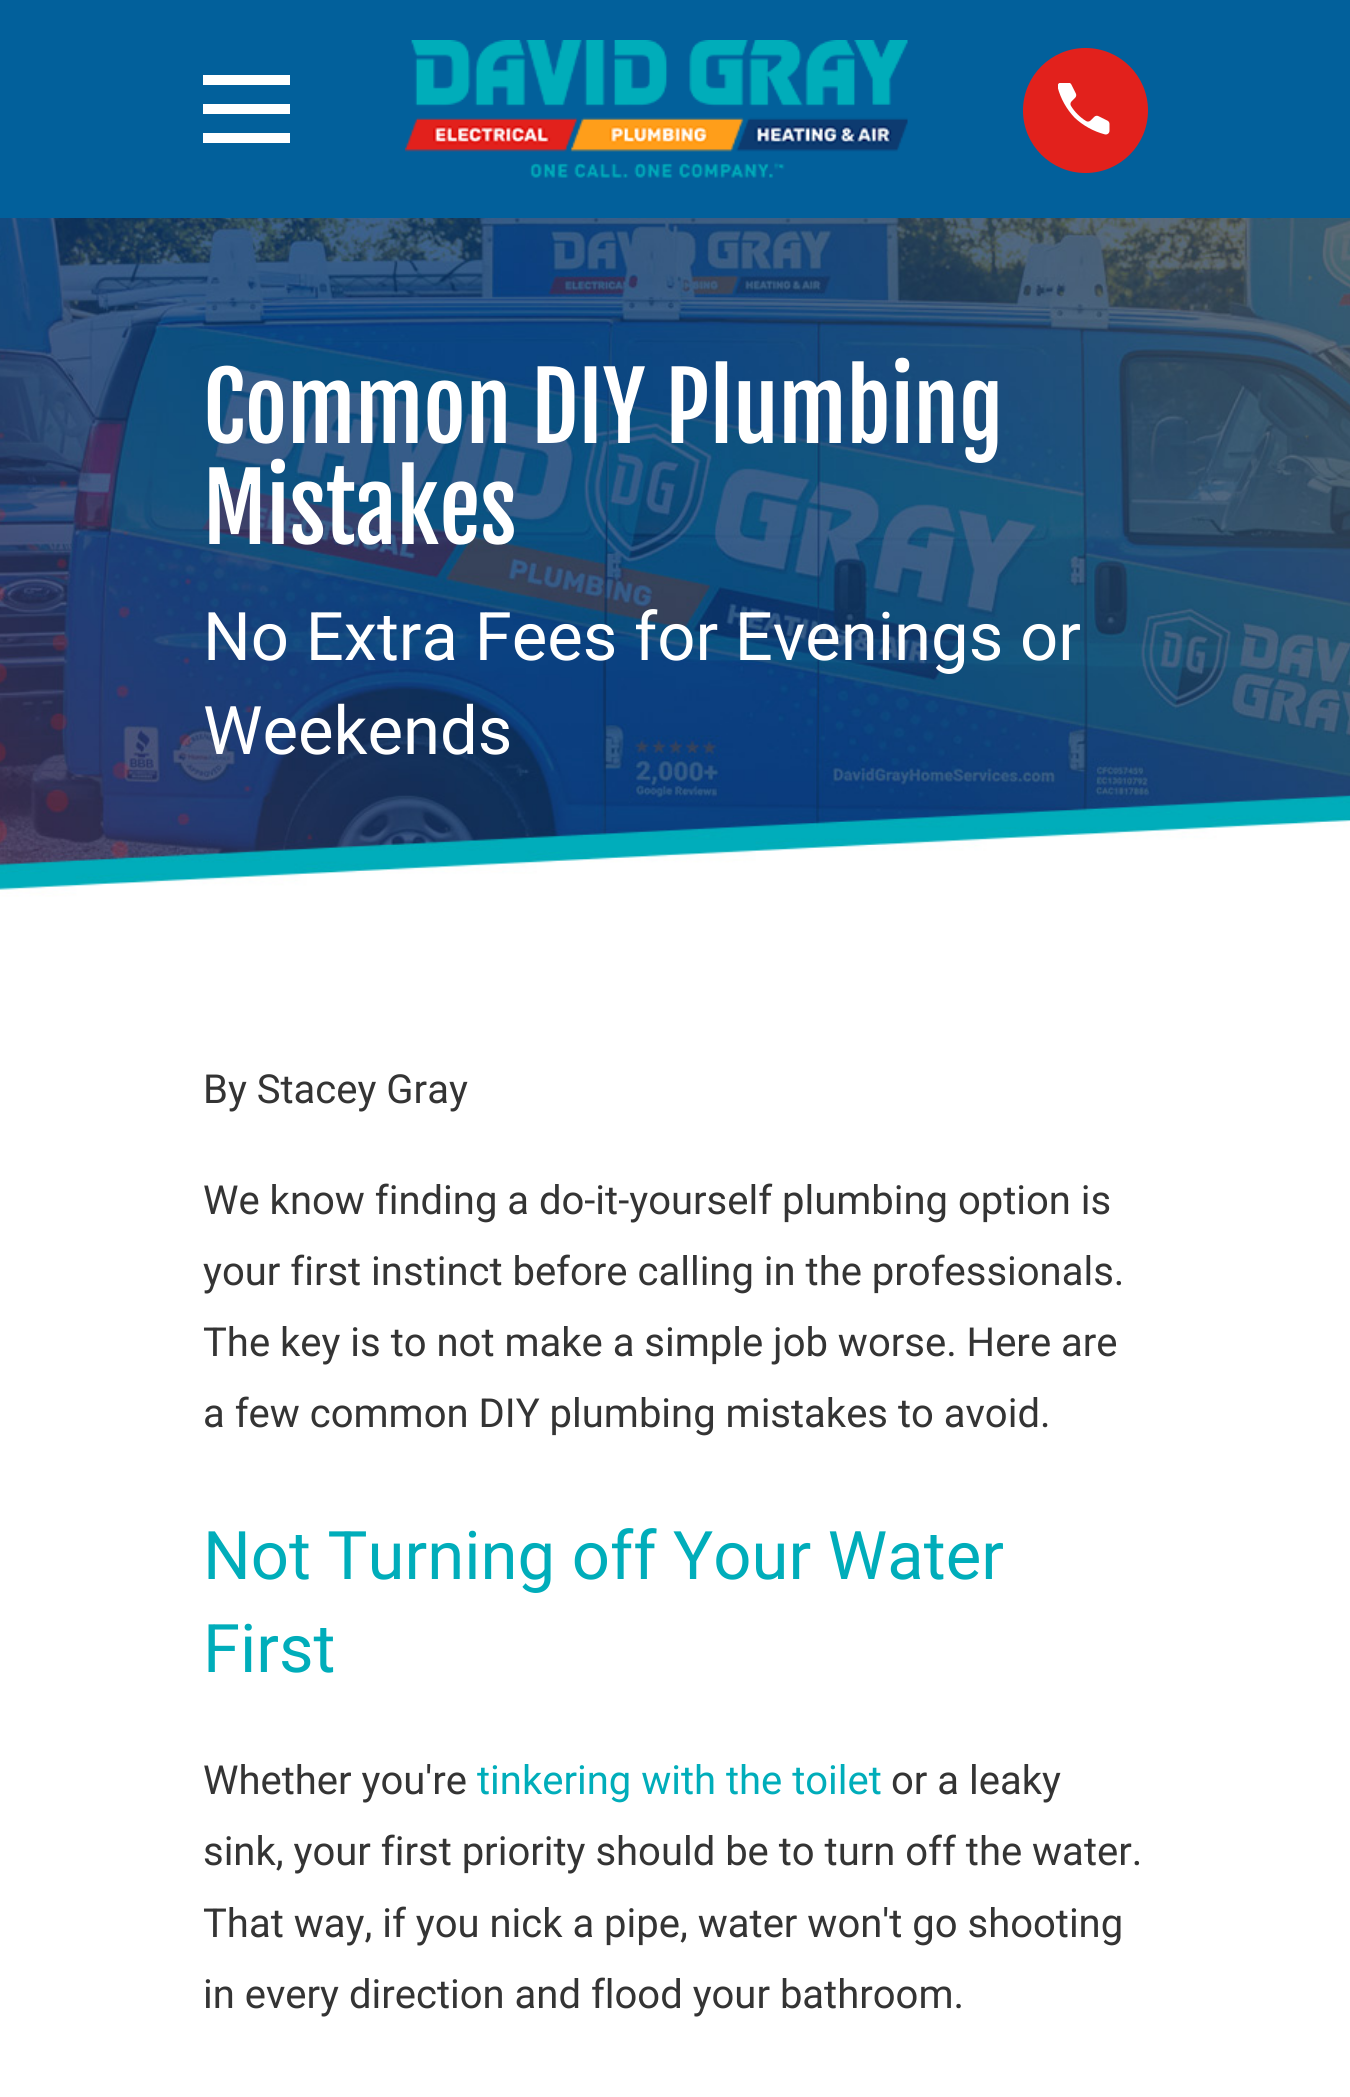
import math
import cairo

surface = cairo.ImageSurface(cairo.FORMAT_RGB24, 1350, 2097)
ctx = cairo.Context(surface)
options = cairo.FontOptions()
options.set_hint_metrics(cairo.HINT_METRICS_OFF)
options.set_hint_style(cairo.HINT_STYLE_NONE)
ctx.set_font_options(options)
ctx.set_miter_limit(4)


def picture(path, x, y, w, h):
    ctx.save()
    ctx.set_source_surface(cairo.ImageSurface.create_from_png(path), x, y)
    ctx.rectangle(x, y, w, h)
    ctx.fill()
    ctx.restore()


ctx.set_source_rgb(1, 1, 1)
ctx.paint()
ctx.set_source_rgb(0.008, 0.376, 0.608)
ctx.rectangle(0, 0, 1350, 218)
ctx.fill()
ctx.save()
ctx.rectangle(203, 65, 87, 88)
ctx.clip()
ctx.set_source_rgb(1, 1, 1)
ctx.new_path()
ctx.move_to(202, 75)
ctx.line_to(202, 85)
ctx.line_to(290, 85)
ctx.line_to(290, 75)
ctx.close_path()
ctx.move_to(202, 104)
ctx.line_to(202, 114)
ctx.line_to(290, 114)
ctx.line_to(290, 104)
ctx.close_path()
ctx.move_to(202, 133)
ctx.line_to(202, 143)
ctx.line_to(290, 143)
ctx.line_to(290, 133)
ctx.close_path()
ctx.fill()
ctx.restore()
picture("img1.png", 405, 40, 503, 138)
ctx.set_source_rgb(0.886, 0.129, 0.11)
ctx.arc(1085.5, 110.5, 62.5, 0, 2 * math.pi)
ctx.fill()
picture("img2.png", 1058, 83, 52, 52)
picture("img3.png", 0, 218, 1350, 702)
ctx.select_font_face("Fjalla One")
ctx.set_font_size(92)
ctx.set_source_rgb(1, 1, 1)
ctx.move_to(203, 443)
ctx.show_text("Common DIY Plumbing")
ctx.move_to(203, 544)
ctx.show_text("Mistakes")
ctx.select_font_face("Roboto")
ctx.set_font_size(67)
ctx.move_to(203, 660)
ctx.show_text("No Extra Fees for Evenings or")
ctx.move_to(203, 754)
ctx.show_text("Weekends")
ctx.set_font_size(40)
ctx.set_source_rgb(0.204, 0.204, 0.204)
ctx.move_to(203, 1103)
ctx.show_text("By Stacey Gray")
ctx.move_to(203, 1214)
ctx.show_text("We know finding a do-it-yourself plumbing option is")
ctx.move_to(203, 1285)
ctx.show_text("your first instinct before calling in the professionals.")
ctx.move_to(203, 1356)
ctx.show_text("The key is to not make a simple job worse. Here are")
ctx.move_to(203, 1427)
ctx.show_text("a few common DIY plumbing mistakes to avoid.")
ctx.set_font_size(67)
ctx.set_source_rgb(0, 0.678, 0.729)
ctx.move_to(203, 1579)
ctx.show_text("Not Turning off Your Water")
ctx.move_to(203, 1672)
ctx.show_text("First")
ctx.set_font_size(40)
ctx.set_source_rgb(0.204, 0.204, 0.204)
ctx.move_to(203, 1794)
ctx.show_text("Whether you're")
ctx.set_source_rgb(0, 0.678, 0.729)
ctx.move_to(477, 1794)
ctx.show_text("tinkering with the toilet")
ctx.set_source_rgb(0.204, 0.204, 0.204)
ctx.move_to(891, 1794)
ctx.show_text("or a leaky")
ctx.move_to(203, 1865)
ctx.show_text("sink, your first priority should be to turn off the water.")
ctx.move_to(203, 1937)
ctx.show_text("That way, if you nick a pipe, water won't go shooting")
ctx.move_to(203, 2008)
ctx.show_text("in every direction and flood your bathroom.")
surface.write_to_png("page.png")
